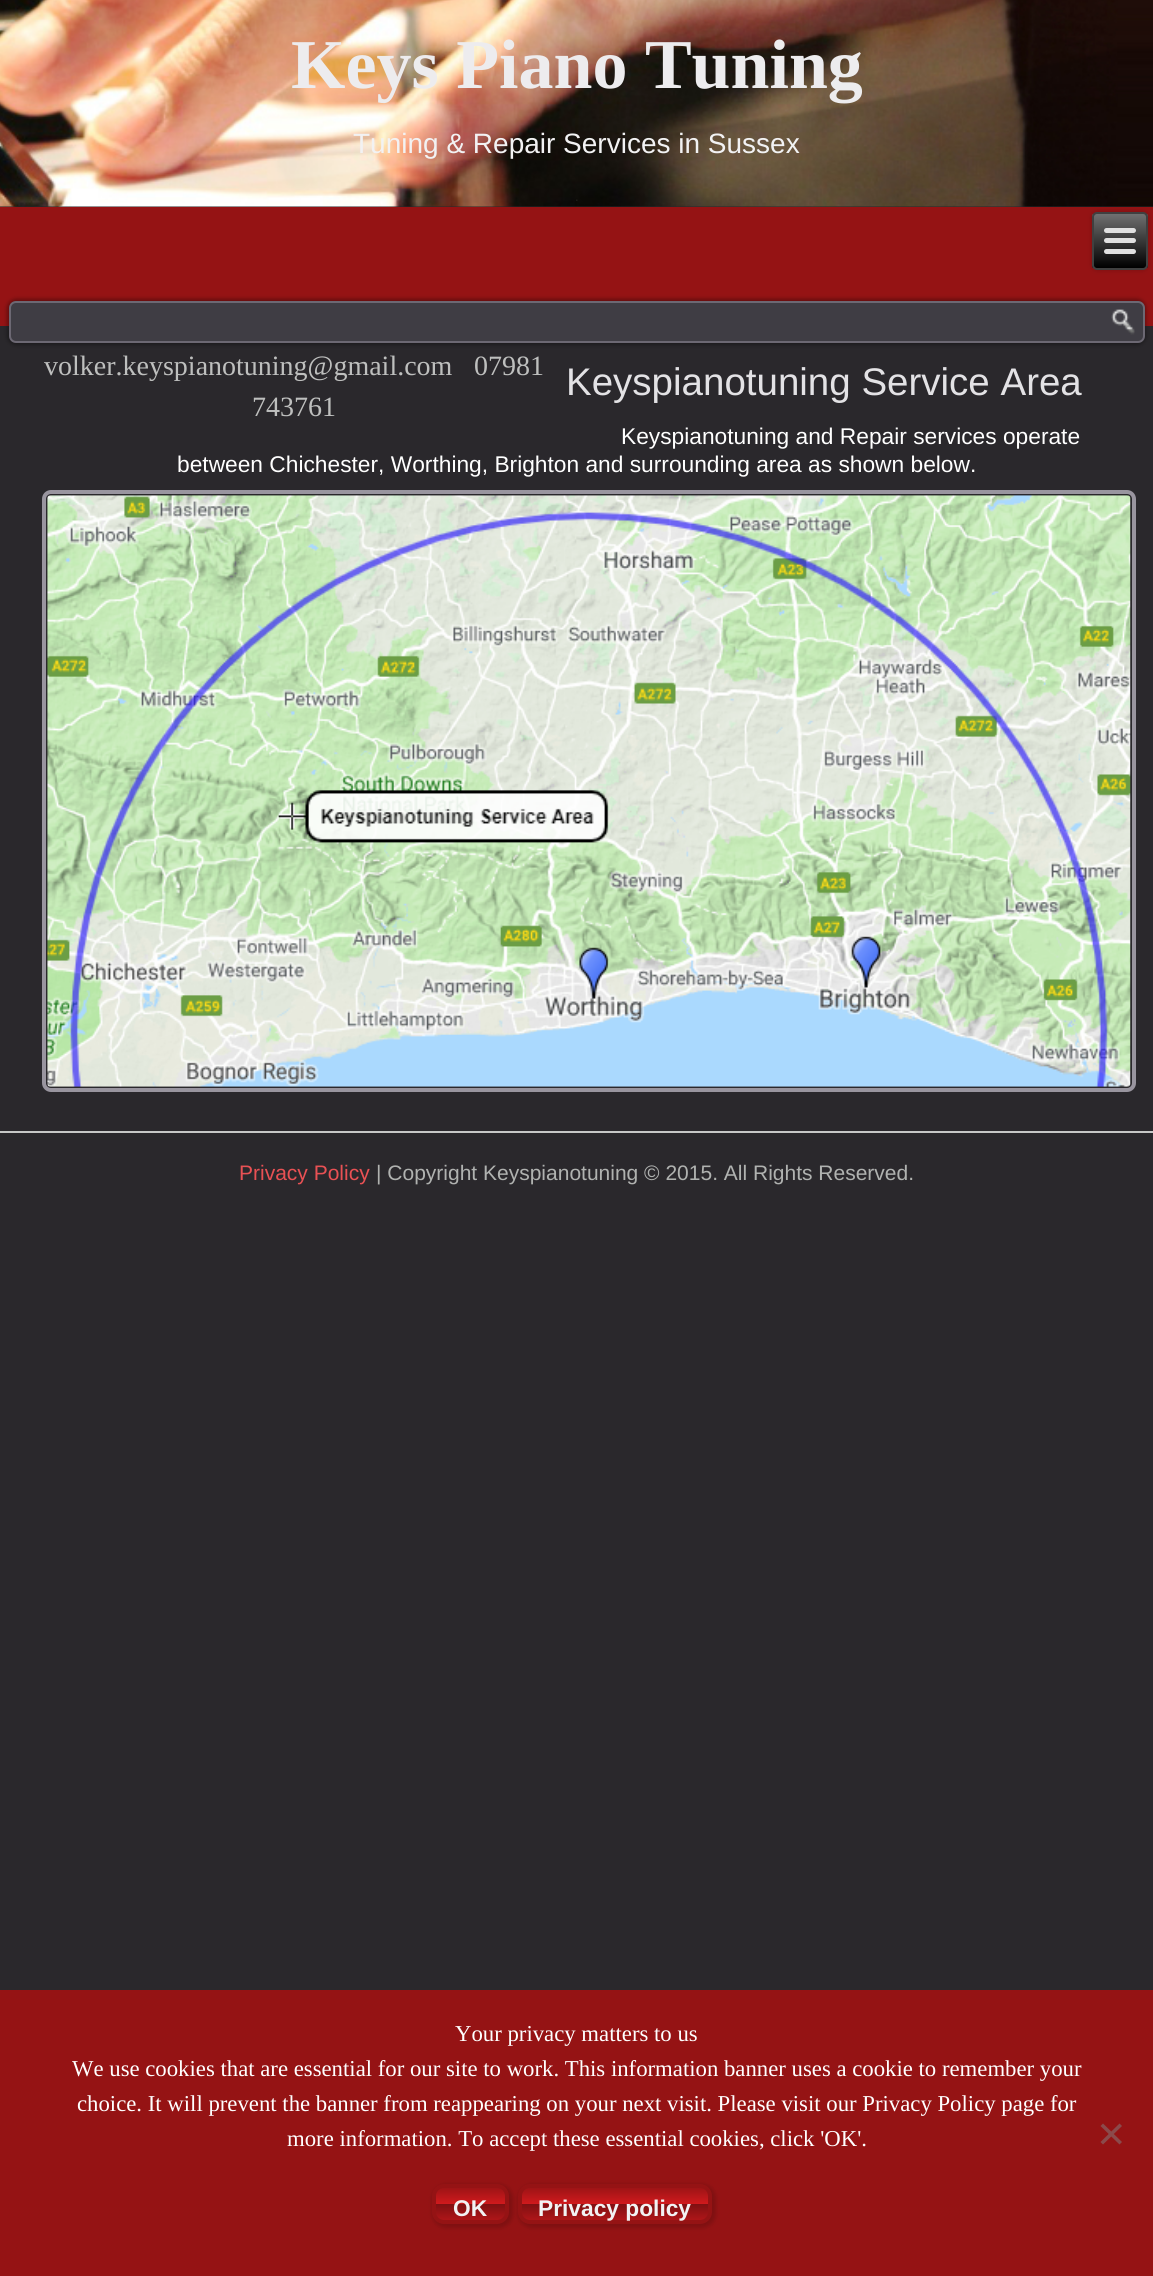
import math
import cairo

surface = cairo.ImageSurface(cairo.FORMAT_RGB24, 1153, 2276)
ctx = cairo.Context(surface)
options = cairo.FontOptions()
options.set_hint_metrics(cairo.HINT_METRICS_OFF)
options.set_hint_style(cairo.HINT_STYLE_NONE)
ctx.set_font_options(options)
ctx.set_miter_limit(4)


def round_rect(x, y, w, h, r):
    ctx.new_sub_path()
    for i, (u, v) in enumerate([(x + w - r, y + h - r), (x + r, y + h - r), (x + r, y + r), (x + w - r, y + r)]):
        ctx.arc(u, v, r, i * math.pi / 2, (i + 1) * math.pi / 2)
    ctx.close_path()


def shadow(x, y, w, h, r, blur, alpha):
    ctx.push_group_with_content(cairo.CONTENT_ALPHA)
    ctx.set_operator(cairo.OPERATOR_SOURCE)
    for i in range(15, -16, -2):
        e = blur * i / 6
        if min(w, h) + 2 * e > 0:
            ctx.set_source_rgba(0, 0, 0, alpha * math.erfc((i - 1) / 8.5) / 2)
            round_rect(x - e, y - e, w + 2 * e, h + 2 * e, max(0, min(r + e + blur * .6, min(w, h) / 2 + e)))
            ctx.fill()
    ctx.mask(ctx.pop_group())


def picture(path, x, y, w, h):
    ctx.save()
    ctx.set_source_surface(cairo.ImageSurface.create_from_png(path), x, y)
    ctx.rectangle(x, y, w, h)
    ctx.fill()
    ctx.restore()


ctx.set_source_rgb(0.165, 0.157, 0.173)
ctx.paint()
picture("img1.png", 0, 0, 1153, 207)
ctx.select_font_face("Liberation Serif", cairo.FONT_SLANT_NORMAL, cairo.FONT_WEIGHT_BOLD)
ctx.set_font_size(70)
ctx.set_source_rgb(0.929, 0.925, 0.933)
ctx.move_to(291, 88)
ctx.show_text("Keys Piano Tuning")
ctx.select_font_face("Liberation Sans")
ctx.set_font_size(28)
ctx.set_source_rgb(0.949, 0.949, 0.953)
ctx.move_to(353, 153)
ctx.show_text("Tuning & Repair Services in Sussex")
picture("img2.png", 576, 199, 2, 2)
ctx.set_source_rgb(0.584, 0.075, 0.082)
ctx.rectangle(0, 207, 1153, 119)
ctx.fill()
ctx.set_source_rgb(0, 0, 0)
shadow(1092, 212, 56, 58, 5, 2.5, 0.2)
ctx.save()
round_rect(1092, 212, 56, 58, 5)
ctx.clip()
gradient = cairo.LinearGradient(1120, 214, 1120, 268)
gradient.add_color_stop_rgba(0, 0.439, 0.439, 0.439, 1)
gradient.add_color_stop_rgba(1, 0, 0, 0, 1)
ctx.set_source(gradient)
ctx.rectangle(1092, 214, 56, 54)
ctx.fill()
ctx.restore()
round_rect(1093, 213, 54, 56, 4)
ctx.set_source_rgb(0.251, 0.251, 0.251)
ctx.stroke()
ctx.set_source_rgb(0.878, 0.878, 0.878)
round_rect(1104, 228, 32, 5, 2.5)
ctx.fill()
round_rect(1104, 238, 32, 5, 2.5)
ctx.fill()
round_rect(1104, 249, 32, 5, 2.5)
ctx.fill()
ctx.set_source_rgb(0, 0, 0)
shadow(7, 299, 1139, 46, 9, 2, 0.35)
ctx.set_source_rgb(0.247, 0.239, 0.267)
round_rect(10, 302, 1134, 40, 6)
ctx.fill_preserve()
ctx.set_source_rgb(0.424, 0.408, 0.451)
ctx.stroke()
picture("img3.png", 1111, 309, 24, 26)
ctx.select_font_face("Liberation Serif")
ctx.set_source_rgb(0.745, 0.749, 0.745)
ctx.move_to(44, 375)
ctx.show_text("volker.keyspianotuning@gmail.com")
ctx.move_to(474, 375)
ctx.show_text("07981")
ctx.move_to(252, 416)
ctx.show_text("743761")
ctx.select_font_face("Liberation Sans")
ctx.set_font_size(38.5)
ctx.set_source_rgb(0.89, 0.886, 0.898)
ctx.move_to(566, 395)
ctx.show_text("Keyspianotuning Service Area")
ctx.set_font_size(22.75)
ctx.set_source_rgb(1, 1, 1)
ctx.move_to(621, 444)
ctx.show_text("Keyspianotuning and Repair services operate")
ctx.move_to(177, 472)
ctx.show_text("between Chichester, Worthing, Brighton and surrounding area as shown below.")
round_rect(44, 492, 1090, 598, 7)
ctx.set_source_rgb(0.6, 0.584, 0.624)
ctx.set_line_width(4)
ctx.stroke()
picture("img4.png", 47, 495, 1084, 592)
ctx.set_source_rgb(0.78, 0.784, 0.78)
ctx.rectangle(0, 1131, 1153, 2)
ctx.fill()
ctx.set_font_size(21)
ctx.set_source_rgb(0.914, 0.318, 0.329)
ctx.move_to(239, 1180)
ctx.show_text("Privacy Policy")
ctx.set_source_rgb(0.69, 0.698, 0.69)
ctx.move_to(376, 1180)
ctx.show_text("| Copyright Keyspianotuning © 2015. All Rights Reserved.")
ctx.set_source_rgb(0.584, 0.075, 0.082)
ctx.rectangle(0, 1990, 1153, 286)
ctx.fill()
ctx.select_font_face("Liberation Serif")
ctx.set_font_size(22.75)
ctx.set_source_rgb(1, 1, 1)
ctx.move_to(455, 2041)
ctx.show_text("Your privacy matters to us")
ctx.move_to(72, 2076)
ctx.show_text("We use cookies that are essential for our site to work. This information banner uses a cookie to remember your")
ctx.move_to(77, 2111)
ctx.show_text("choice. It will prevent the banner from reappearing on your next visit. Please visit our Privacy Policy page for")
ctx.move_to(287, 2146)
ctx.show_text("more information. To accept these essential cookies, click 'OK'.")
ctx.set_source_rgb(0.545, 0.29, 0.294)
ctx.new_path()
ctx.move_to(1119.5, 2123.5)
ctx.line_to(1122, 2126)
ctx.line_to(1103, 2144.5)
ctx.line_to(1100.5, 2142)
ctx.close_path()
ctx.fill()
ctx.new_path()
ctx.move_to(1100.5, 2126)
ctx.line_to(1103, 2123.5)
ctx.line_to(1122, 2142)
ctx.line_to(1119.5, 2144.5)
ctx.close_path()
ctx.fill()
ctx.set_source_rgb(0, 0, 0)
shadow(432, 2184, 81, 44, 14, 2, 0.15)
gradient = cairo.LinearGradient(471, 2184, 471, 2224)
gradient.add_color_stop_rgba(0, 0.569, 0.071, 0.078, 1)
gradient.add_color_stop_rgba(0.5, 0.82, 0.102, 0.114, 1)
gradient.add_color_stop_rgba(0.5, 0.498, 0.063, 0.071, 1)
gradient.add_color_stop_rgba(1, 0.729, 0.09, 0.102, 1)
ctx.set_source(gradient)
round_rect(434, 2186, 73, 36, 10)
ctx.fill_preserve()
ctx.set_source_rgb(0.584, 0.075, 0.082)
ctx.stroke()
ctx.select_font_face("Liberation Sans", cairo.FONT_SLANT_NORMAL, cairo.FONT_WEIGHT_BOLD)
ctx.set_source_rgb(0.949, 0.949, 0.953)
ctx.move_to(453, 2216)
ctx.show_text("OK")
ctx.set_source_rgb(0, 0, 0)
shadow(518, 2184, 198, 44, 14, 2, 0.15)
gradient = cairo.LinearGradient(615, 2184, 615, 2224)
gradient.add_color_stop_rgba(0, 0.569, 0.071, 0.078, 1)
gradient.add_color_stop_rgba(0.5, 0.82, 0.102, 0.114, 1)
gradient.add_color_stop_rgba(0.5, 0.498, 0.063, 0.071, 1)
gradient.add_color_stop_rgba(1, 0.729, 0.09, 0.102, 1)
ctx.set_source(gradient)
round_rect(520, 2186, 190, 36, 10)
ctx.fill_preserve()
ctx.set_source_rgb(0.584, 0.075, 0.082)
ctx.stroke()
ctx.set_source_rgb(0.949, 0.949, 0.953)
ctx.move_to(538, 2216)
ctx.show_text("Privacy policy")
surface.write_to_png("page.png")
